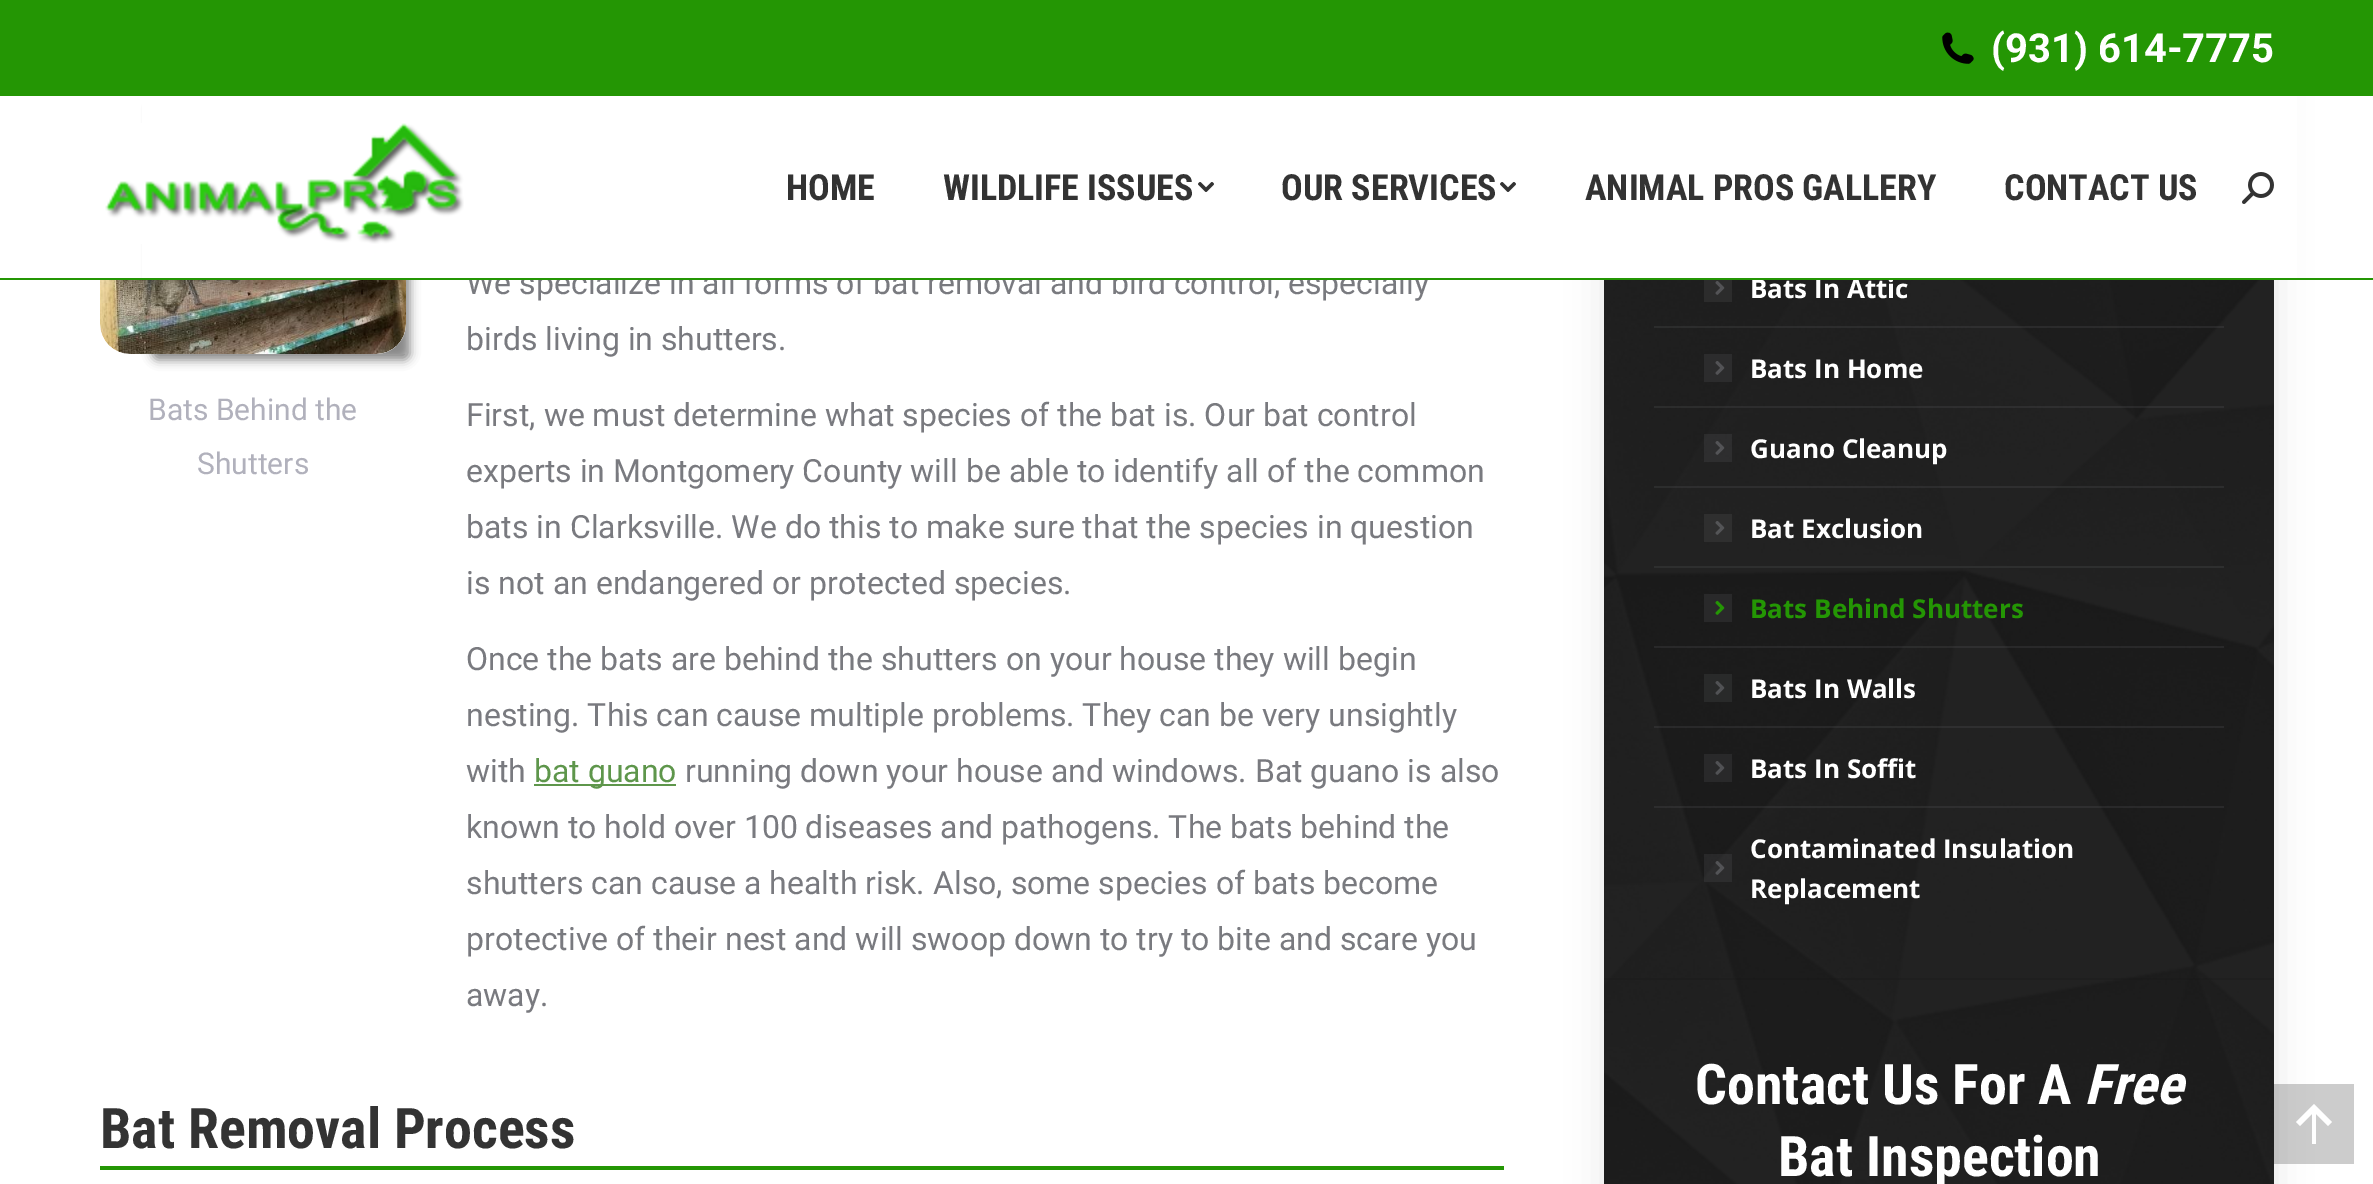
%!PS-Adobe-3.0
%%BoundingBox: 0 0 2373 1184
%%LanguageLevel: 3
%%Pages: 1
%%EndComments
%%BeginProlog
/setink { 3 { 255 div 3 1 roll } repeat setrgbcolor } def
/usefont { [ exch dup neg 0 0 3 -1 roll 0 0 ] selectfont } def
/drawtext { setink usefont moveto show } def
/fillbox { setink rectfill } def
/setalpha { dup .setfillconstantalpha .setstrokeconstantalpha } def
/rrect { 5 dict begin { /r /h /w /y /x } { exch def } forall
  x r add y moveto x w add y 2 copy h add r arct x w add y h add x 1 index r arct
  x y h add x y r arct x y 2 copy exch w add exch r arct closepath end } def
/softshadow { 12 dict begin { /a /b /q /h /w /y /x } { exch def } forall gsave /was 0 def
  9 -2 -9 { dup b mul 4 div /e exch def 1 sub .425 mul 2.718 exch exp 1 add a .99 .min exch div /now exch def
    1 1 now sub 1 was sub div sub setalpha /was now def
    w h .min e 2 mul add 0 gt { x e sub y e sub w e 2 mul add h e 2 mul add
      q e add b .6 mul add w h .min 2 div e add .min 0 .max rrect fill } if } for grestore end } def
/drawimage { 5 dict begin { /h /w /y /x /name } { exch def } forall
  gsave x y translate w h scale
  w h 8 [w 0 0 h 0 0] name (r) file false 3 colorimage grestore end } def
%%EndProlog
%%BeginSetup
<< /PageSize [2373 1184] /PageUsesTransparency true >> setpagedevice
%%EndSetup
%%Page: 1 1
0 .pushpdf14devicefilter
0 1184 translate 1 -1 scale
4 setmiterlimit
0 0 2373 1184 255 255 255 fillbox
136 136 136 setink
152 102 258 258 6 5 1 softshadow
(We specialize in all forms of bat removal and bird control, especially) 466 294 /Roboto-Regular 32 121 122 127 drawtext
0 0 0 setink
1604 60 670 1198 20 18 0.1 softshadow
142 96 2155 182 255 255 255 fillbox
1604 280 670 904 2 2 2 fillbox
(assets/img6.rgb) 1604 280 670 904 drawimage
(Bats In Attic) 1750 298 /OpenSans-Bold 26 255 255 255 drawtext
0 278 2373 2 36 150 4 fillbox
0 0 2373 96 36 150 4 fillbox
(assets/img1.rgb) 1942 32 32 32 drawimage
(\(931\) 614-7775) 1991 62 /Roboto-Bold 40 255 255 255 drawtext
(assets/img2.rgb) 105 123 359 121 drawimage
(HOME) 786 200 /RobotoCondensed-Bold 36 51 51 51 drawtext
(WILDLIFE ISSUES) 943 200 /RobotoCondensed-Bold 36 51 51 51 drawtext
(assets/img3.rgb) 1198 182 16 10 drawimage
(OUR SERVICES) 1281 200 /RobotoCondensed-Bold 36 51 51 51 drawtext
(assets/img3.rgb) 1500 182 16 10 drawimage
(ANIMAL PROS GALLERY) 1585 200 /RobotoCondensed-Bold 36 51 51 51 drawtext
(CONTACT US) 2004 200 /RobotoCondensed-Bold 36 51 51 51 drawtext
(assets/img4.rgb) 2242 172 32 32 drawimage
(assets/img5.rgb) 100 280 306 74 drawimage
(Bats Behind the) 148 420 /Roboto-Regular 30 177 177 188 drawtext
(Shutters) 197 474 /Roboto-Regular 30 177 177 188 drawtext
(birds living in shutters.) 466 350 /Roboto-Regular 32 121 122 127 drawtext
(First, we must determine what species of the bat is. Our bat control) 466 426 /Roboto-Regular 32 121 122 127 drawtext
(experts in Montgomery County will be able to identify all of the common) 466 482 /Roboto-Regular 32 121 122 127 drawtext
(bats in Clarksville. We do this to make sure that the species in question) 466 538 /Roboto-Regular 32 121 122 127 drawtext
(is not an endangered or protected species.) 466 594 /Roboto-Regular 32 121 122 127 drawtext
(Once the bats are behind the shutters on your house they will begin) 466 670 /Roboto-Regular 32 121 122 127 drawtext
(nesting. This can cause multiple problems. They can be very unsightly) 466 726 /Roboto-Regular 32 121 122 127 drawtext
(with) 466 782 /Roboto-Regular 32 121 122 127 drawtext
534 784 142 2 94 150 75 fillbox
(bat guano) 534 782 /Roboto-Regular 32 94 150 75 drawtext
(running down your house and windows. Bat guano is also) 685 782 /Roboto-Regular 32 121 122 127 drawtext
(known to hold over 100 diseases and pathogens. The bats behind the) 466 838 /Roboto-Regular 32 121 122 127 drawtext
(shutters can cause a health risk. Also, some species of bats become) 466 894 /Roboto-Regular 32 121 122 127 drawtext
(protective of their nest and will swoop down to try to bite and scare you) 466 950 /Roboto-Regular 32 121 122 127 drawtext
(away.) 466 1006 /Roboto-Regular 32 121 122 127 drawtext
100 1166 1404 4 36 150 4 fillbox
(Bat Removal Process) 100 1148 /RobotoCondensed-Bold 56 51 51 51 drawtext
1704 280 28 22 44 44 44 fillbox
(assets/img7.rgb) 1715 281 10 14 drawimage
0.15 setalpha
1654 326 570 2 121 122 127 fillbox
1 setalpha
1704 354 28 28 44 44 45 fillbox
(Bats In Home) 1750 378 /OpenSans-Bold 26 255 255 255 drawtext
(assets/img8.rgb) 1715 361 10 14 drawimage
0.15 setalpha
1654 406 570 2 121 122 127 fillbox
1704 434 28 28 121 122 127 fillbox
1 setalpha
(Guano Cleanup) 1750 458 /OpenSans-Bold 26 255 255 255 drawtext
(assets/img9.rgb) 1715 441 10 14 drawimage
0.15 setalpha
1654 486 570 2 121 122 127 fillbox
1 setalpha
1704 514 28 28 47 47 47 fillbox
(Bat Exclusion) 1750 538 /OpenSans-Bold 26 255 255 255 drawtext
(assets/img10.rgb) 1715 521 10 14 drawimage
1654 566 570 2 46 47 47 fillbox
1704 594 28 28 41 41 42 fillbox
(Bats Behind Shutters) 1750 618 /OpenSans-Bold 26 36 150 4 drawtext
(assets/img11.rgb) 1715 600 10 15 drawimage
0.15 setalpha
1654 646 570 2 121 122 127 fillbox
1 setalpha
1704 674 28 28 41 42 42 fillbox
(Bats In Walls) 1750 698 /OpenSans-Bold 26 255 255 255 drawtext
(assets/img12.rgb) 1715 681 10 14 drawimage
0.15 setalpha
1654 726 570 2 121 122 127 fillbox
1 setalpha
1704 754 28 28 41 41 42 fillbox
(Bats In Soffit) 1750 778 /OpenSans-Bold 26 255 255 255 drawtext
(assets/img13.rgb) 1715 761 10 14 drawimage
0.15 setalpha
1654 806 570 2 121 122 127 fillbox
1 setalpha
(Contaminated Insulation) 1750 858 /OpenSans-Bold 26 255 255 255 drawtext
0.15 setalpha
1704 854 28 28 121 122 127 fillbox
1 setalpha
(assets/img14.rgb) 1715 861 10 14 drawimage
(Replacement) 1750 898 /OpenSans-Bold 26 255 255 255 drawtext
0.08 setalpha
1604 978 670 2 0 0 0 fillbox
1 setalpha
(Contact Us For A) 1695 1104 /RobotoCondensed-Bold 56 255 255 255 drawtext
(Free) 2084 1104 /RobotoCondensed-BoldItalic 56 255 255 255 drawtext
(Bat Inspection) 1778 1176 /RobotoCondensed-Bold 56 255 255 255 drawtext
0.2 setalpha
2274 1084 80 80 0 0 0 fillbox
1 setalpha
255 255 255 setink
2296 1122 moveto 2300 1126 lineto 2312 1114 lineto 2312 1144 lineto 2316 1144 lineto 2316 1114 lineto 2328 1126 lineto 2332 1122 lineto 2314 1104 lineto closepath fill
.poppdf14devicefilter showpage
%%EOF
